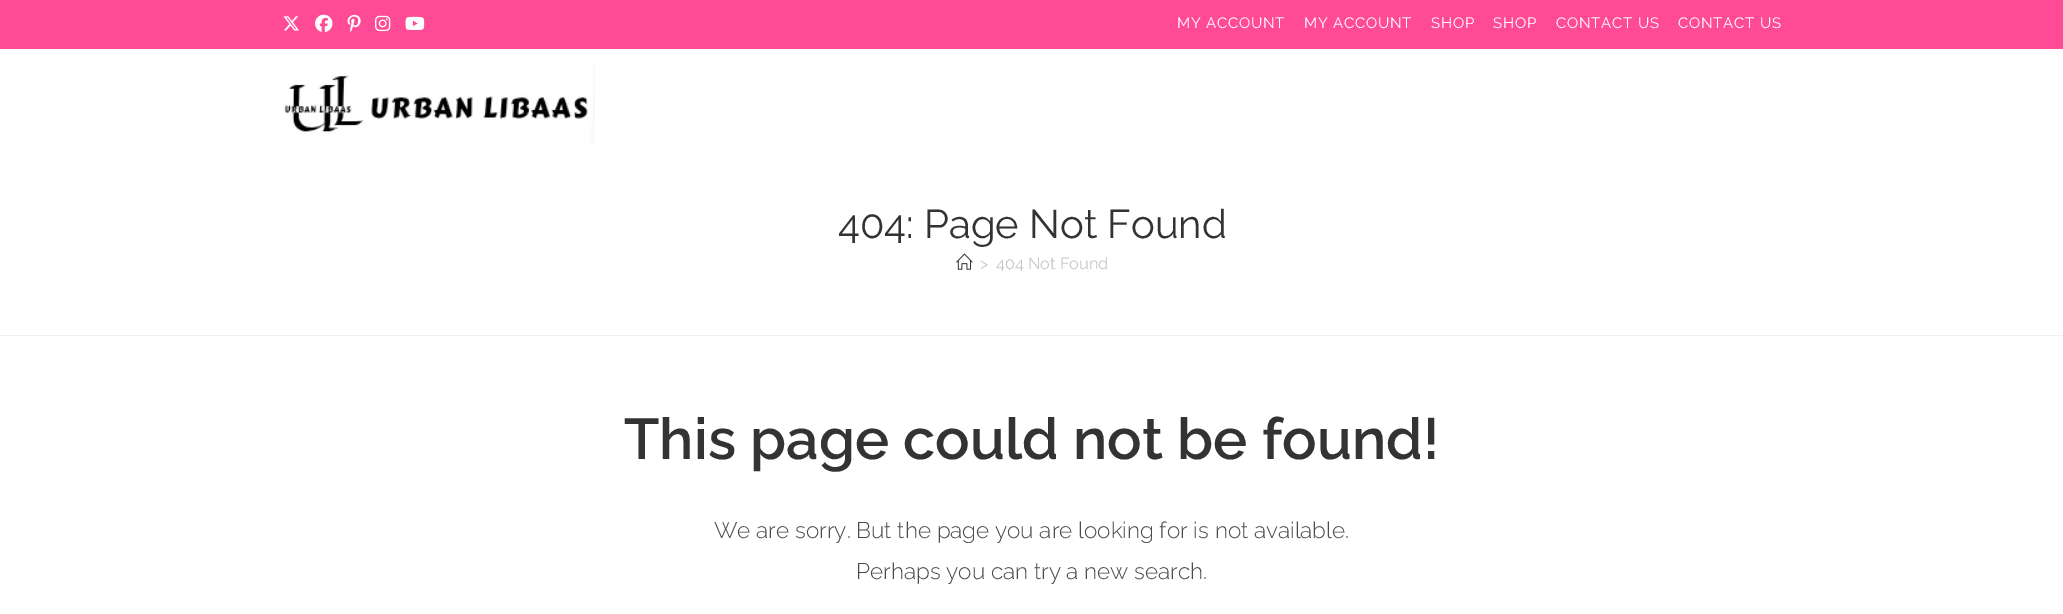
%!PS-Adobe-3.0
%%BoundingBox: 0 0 2063 614
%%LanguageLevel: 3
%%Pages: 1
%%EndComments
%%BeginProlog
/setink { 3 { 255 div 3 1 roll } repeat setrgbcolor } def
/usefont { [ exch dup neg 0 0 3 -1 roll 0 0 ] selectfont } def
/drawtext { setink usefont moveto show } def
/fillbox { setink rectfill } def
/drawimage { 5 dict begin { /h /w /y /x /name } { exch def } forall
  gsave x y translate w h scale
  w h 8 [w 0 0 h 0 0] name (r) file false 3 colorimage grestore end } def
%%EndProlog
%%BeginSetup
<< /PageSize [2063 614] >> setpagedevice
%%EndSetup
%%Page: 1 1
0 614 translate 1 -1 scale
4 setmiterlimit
0 0 2063 614 255 255 255 fillbox
0 0 2063 49 255 74 150 fillbox
(assets/img1.rgb) 283 16 16 15 drawimage
(assets/img2.rgb) 315 14 18 18 drawimage
(assets/img3.rgb) 347 14 14 18 drawimage
(assets/img4.rgb) 375 15 16 17 drawimage
(assets/img5.rgb) 405 16 20 14 drawimage
/Raleway-Regular 15 usefont
255 255 255 setink
1177 28 moveto 0.75 0 (MY ACCOUNT) ashow
1304 28 moveto 0.75 0 (MY ACCOUNT) ashow
1431 28 moveto 0.75 0 (SHOP) ashow
1493 28 moveto 0.75 0 (SHOP) ashow
1556 28 moveto 0.75 0 (CONTACT US) ashow
1678 28 moveto 0.75 0 (CONTACT US) ashow
(assets/img6.rgb) 284 61 311 84 drawimage
0 335 2063 1 241 241 241 fillbox
(404: Page Not Found) 838 238 /Raleway-Regular 40 51 51 51 drawtext
(assets/img7.rgb) 956 253 17 17 drawimage
(>) 980 269 /Raleway-Regular 16.25 198 198 198 drawtext
(404 Not Found) 996 269 /Raleway-Regular 16.25 198 198 198 drawtext
(This page could not be found!) 624 459 /Raleway-SemiBold 57.5 51 51 51 drawtext
(We are sorry. But the page you are looking for is not available.) 714 538 /Raleway-Light 22.5 74 74 74 drawtext
(Perhaps you can try a new search.) 856 579 /Raleway-Light 22.5 74 74 74 drawtext
showpage
%%EOF
